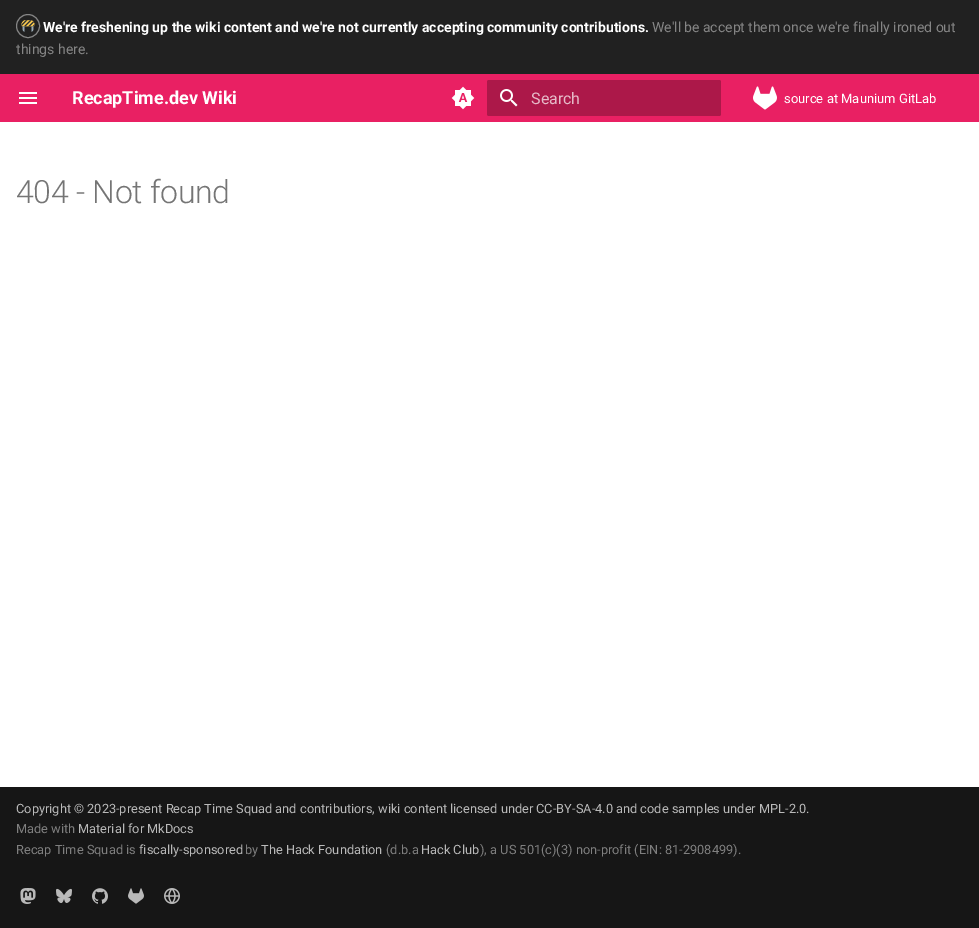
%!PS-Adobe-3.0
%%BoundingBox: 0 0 979 928
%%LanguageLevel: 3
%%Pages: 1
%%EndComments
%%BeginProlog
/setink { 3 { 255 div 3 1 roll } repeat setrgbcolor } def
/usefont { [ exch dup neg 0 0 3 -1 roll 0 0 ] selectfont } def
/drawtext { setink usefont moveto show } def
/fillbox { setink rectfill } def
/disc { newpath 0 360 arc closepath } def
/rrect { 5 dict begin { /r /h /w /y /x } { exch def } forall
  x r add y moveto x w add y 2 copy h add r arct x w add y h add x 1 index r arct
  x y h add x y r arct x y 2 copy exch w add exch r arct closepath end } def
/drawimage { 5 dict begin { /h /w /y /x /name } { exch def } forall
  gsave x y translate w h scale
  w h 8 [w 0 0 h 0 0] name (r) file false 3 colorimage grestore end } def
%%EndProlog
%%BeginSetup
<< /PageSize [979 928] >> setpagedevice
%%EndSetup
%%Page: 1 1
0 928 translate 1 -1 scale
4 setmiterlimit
0 0 979 928 255 255 255 fillbox
0 0 979 74 33 33 33 fillbox
133 133 133 setink
28 26 11.5 disc stroke
(assets/img1.rgb) 21 20 14 12 drawimage
(We're freshening up the wiki content and we're not currently accepting community contributions.) 43 32 /Roboto-Bold 14 255 255 255 drawtext
/Roboto-Regular 14 usefont
133 133 133 setink
652 32 moveto -0.25 0 32 (We'll be accept them once we're finally ironed out) widthshow
(things here.) 16 54 /Roboto-Regular 14 133 133 133 drawtext
0 74 979 48 233 32 99 fillbox
(assets/img2.rgb) 19 92 18 12 drawimage
(RecapTime.dev Wiki) 72 104 /Roboto-Bold 18 255 255 255 drawtext
(assets/img3.rgb) 451 86 24 24 drawimage
172 24 73 setink
487 80 234 36 2 rrect fill
(assets/img4.rgb) 500 89 18 18 drawimage
(Search) 531 104 /Roboto-Regular 16 230 186 200 drawtext
(assets/img5.rgb) 753 86 24 24 drawimage
(source at Maunium GitLab) 784 103 /Roboto-Regular 13 255 255 255 drawtext
/Roboto-Light 32 usefont
117 117 117 setink
16 203 moveto -0.3 0 (404 - Not found) ashow
0 787 979 141 22 22 22 fillbox
(Copyright © 2023-present Recap Time Squad and contributiors, wiki content licensed under CC-BY-SA-4.0 and code samples under MPL-2.0.) 16 813 /Roboto-Regular 12.8 185 185 185 drawtext
(Made with) 16 833 /Roboto-Regular 12.8 127 127 127 drawtext
(Material for MkDocs) 78 833 /Roboto-Regular 12.8 185 185 185 drawtext
(Recap Time Squad is) 16 854 /Roboto-Regular 12.8 127 127 127 drawtext
(fiscally-sponsored) 139 854 /Roboto-Regular 12.8 185 185 185 drawtext
(by) 245 854 /Roboto-Regular 12.8 127 127 127 drawtext
(The Hack Foundation) 261 854 /Roboto-Regular 12.8 185 185 185 drawtext
(\(d.b.a) 386 854 /Roboto-Regular 12.8 127 127 127 drawtext
(Hack Club) 421 854 /Roboto-Regular 12.8 185 185 185 drawtext
(\), a US 501\(c\)\(3\) non-profit \(EIN: 81-2908499\).) 480 854 /Roboto-Regular 12.8 127 127 127 drawtext
(assets/img6.rgb) 20 888 16 16 drawimage
(assets/img7.rgb) 56 888 16 15 drawimage
(assets/img8.rgb) 92 888 16 16 drawimage
(assets/img9.rgb) 128 888 16 16 drawimage
(assets/img10.rgb) 164 888 16 16 drawimage
showpage
%%EOF
